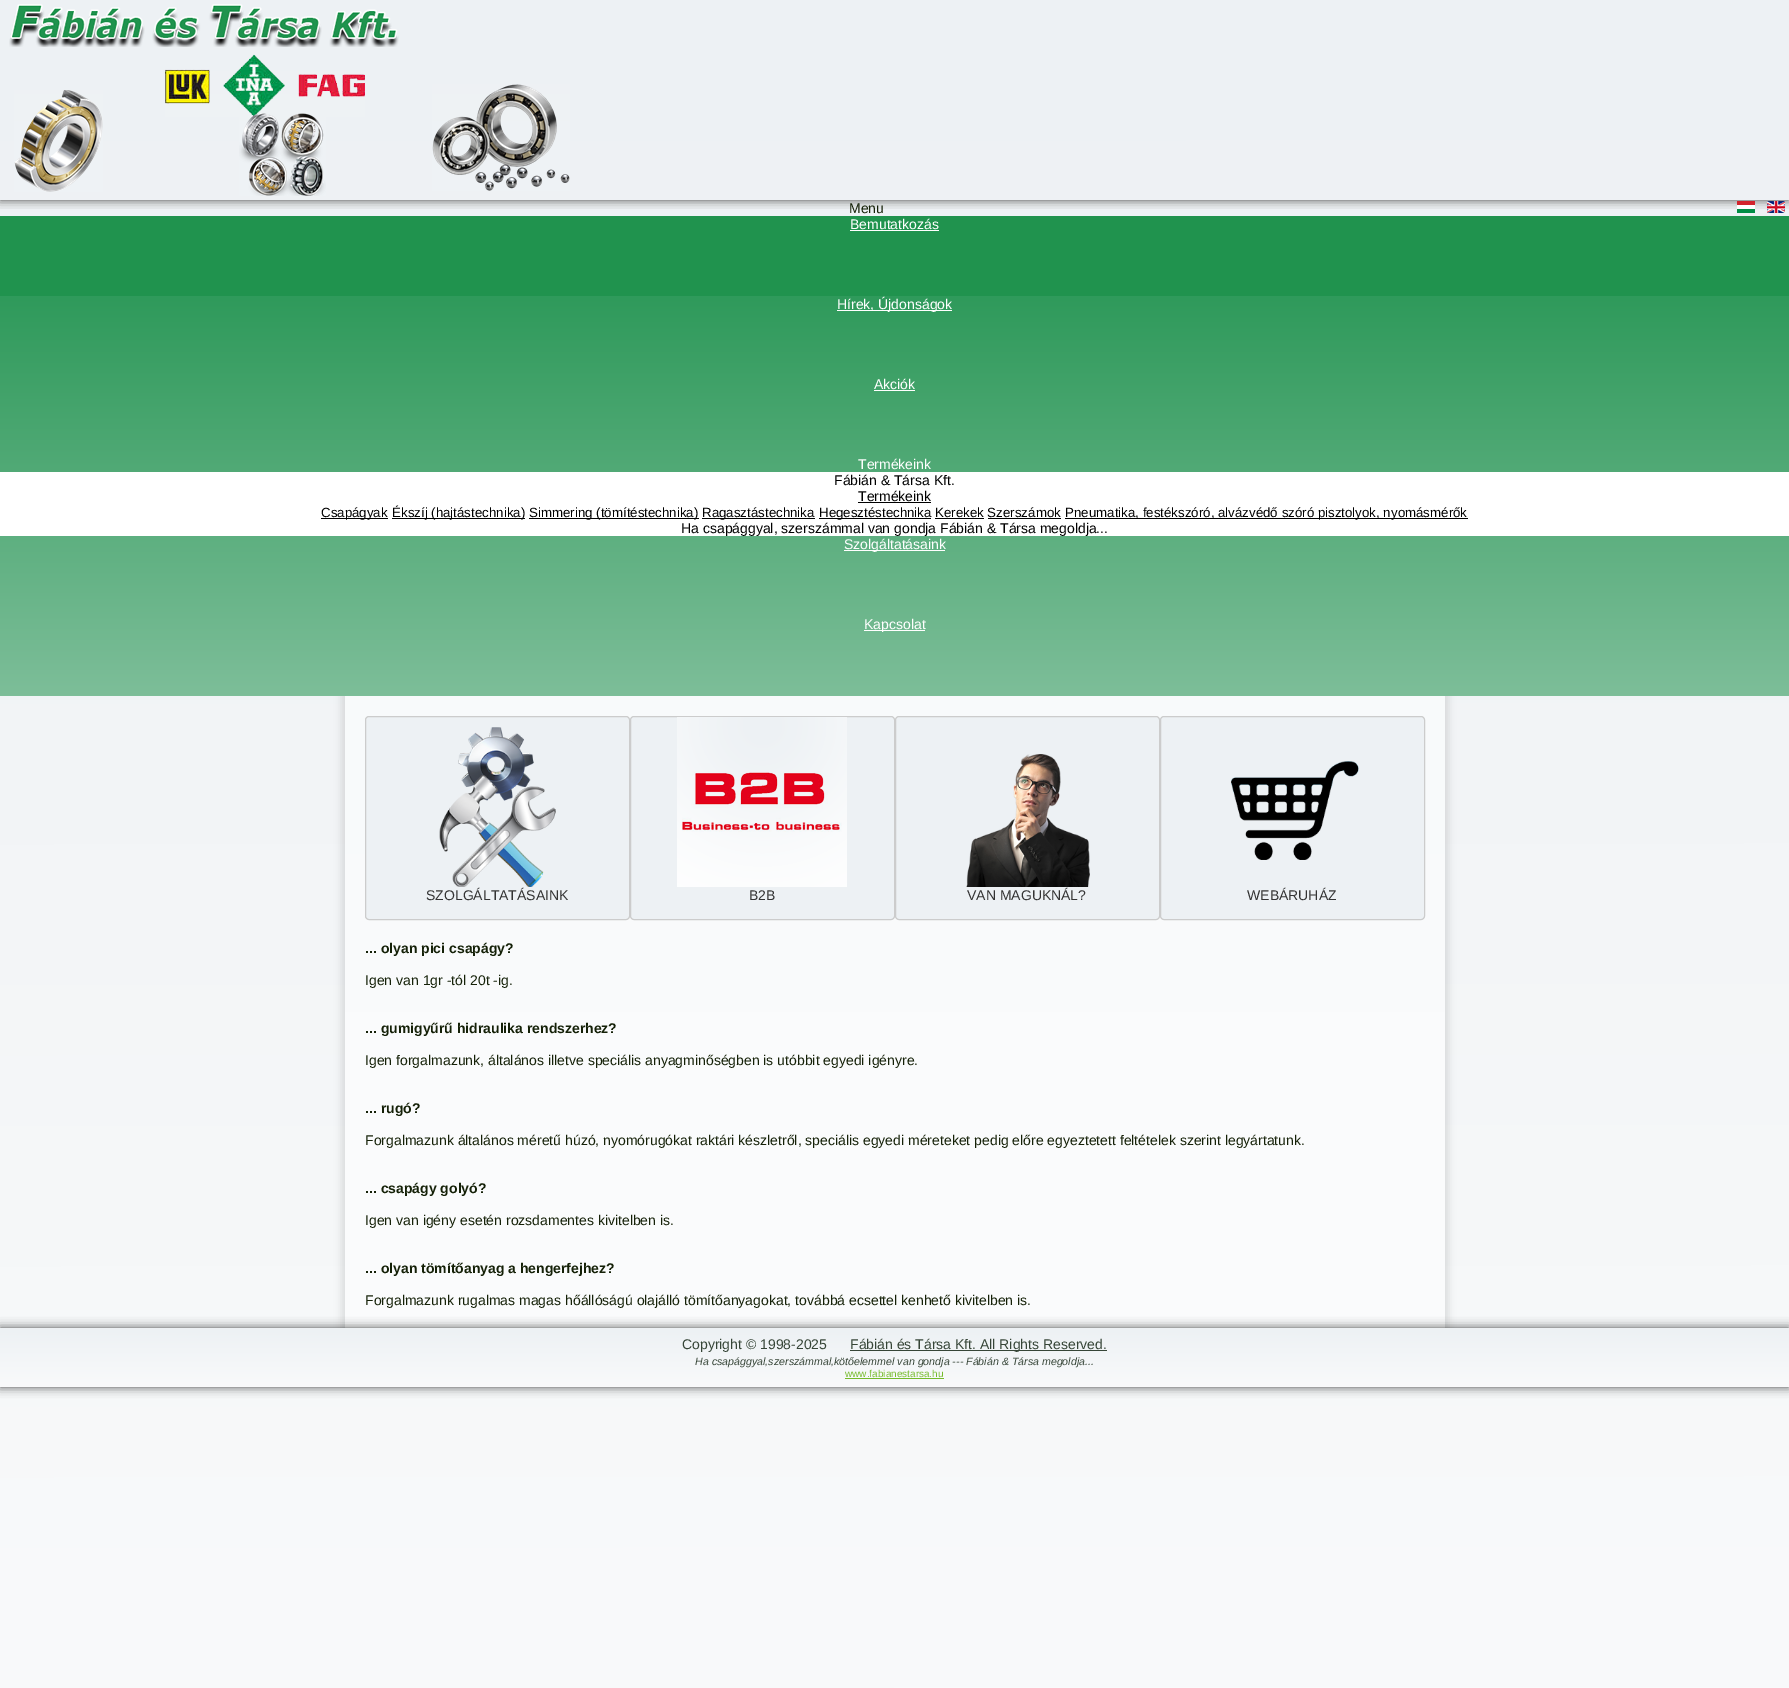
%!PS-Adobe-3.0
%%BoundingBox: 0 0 1789 1688
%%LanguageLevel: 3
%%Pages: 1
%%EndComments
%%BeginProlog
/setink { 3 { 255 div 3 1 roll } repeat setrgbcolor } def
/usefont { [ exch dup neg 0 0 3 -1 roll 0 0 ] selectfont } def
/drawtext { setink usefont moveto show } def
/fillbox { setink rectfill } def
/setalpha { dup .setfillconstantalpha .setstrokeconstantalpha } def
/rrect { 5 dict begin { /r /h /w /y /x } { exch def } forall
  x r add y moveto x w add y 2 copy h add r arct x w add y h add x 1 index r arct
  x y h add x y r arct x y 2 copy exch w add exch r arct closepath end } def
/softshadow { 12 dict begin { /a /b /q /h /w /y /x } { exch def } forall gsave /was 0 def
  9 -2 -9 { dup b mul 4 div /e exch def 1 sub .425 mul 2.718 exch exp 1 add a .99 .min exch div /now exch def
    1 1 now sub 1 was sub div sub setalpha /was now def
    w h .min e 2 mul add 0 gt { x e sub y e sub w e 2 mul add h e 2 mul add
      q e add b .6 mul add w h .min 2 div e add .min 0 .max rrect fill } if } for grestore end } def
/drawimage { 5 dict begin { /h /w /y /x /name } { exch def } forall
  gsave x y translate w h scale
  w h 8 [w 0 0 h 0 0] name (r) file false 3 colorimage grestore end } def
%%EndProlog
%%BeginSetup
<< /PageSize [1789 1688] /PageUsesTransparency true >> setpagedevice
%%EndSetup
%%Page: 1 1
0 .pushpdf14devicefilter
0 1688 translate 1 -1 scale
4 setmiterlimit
0 0 1789 1688 255 255 255 fillbox
gsave 0 0 moveto 1789 0 lineto 1789 1688 lineto 0 1688 lineto closepath clip newpath
<< /ShadingType 2 /ColorSpace /DeviceRGB /Coords [894 0 895 1688] /Extend [true true] /Function << /FunctionType 2 /Domain [0 1] /C0 [0.929 0.945 0.957] /C1 [0.976 0.98 0.984] /N 1 >> >> shfill grestore
gsave 345 696 moveto 1445 696 lineto 1445 1328 lineto 345 1328 lineto closepath clip newpath
<< /ShadingType 2 /ColorSpace /DeviceRGB /Coords [894 0 895 1688] /Extend [true true] /Function << /FunctionType 2 /Domain [0 1] /C0 [0.965 0.973 0.98] /C1 [0.988 0.992 0.992] /N 1 >> >> shfill grestore
gsave
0 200 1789 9 rectclip
0 0 0 setink
0 0 1789 200 0 5 0.7 softshadow
grestore
(assets/img1.rgb) 9 4 390 43 drawimage
(assets/img2.rgb) 14 90 89 102 drawimage
(assets/img3.rgb) 165 54 200 63 drawimage
(assets/img4.rgb) 432 84 138 107 drawimage
(assets/img5.rgb) 239 113 87 83 drawimage
(Menu) 849 213 /LiberationSans-Regular 14 21 33 8 drawtext
gsave
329 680 moveto 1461 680 lineto 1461 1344 lineto 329 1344 lineto closepath 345 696 moveto 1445 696 lineto 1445 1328 lineto 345 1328 lineto closepath eoclip newpath
0 0 0 setink
341 692 1108 640 0 3.5 0.1 softshadow
grestore
gsave 0 296 moveto 1789 296 lineto 1789 696 lineto 0 696 lineto closepath clip newpath
<< /ShadingType 2 /ColorSpace /DeviceRGB /Coords [895 216 895 696] /Extend [true true] /Function << /FunctionType 2 /Domain [0 1] /C0 [0.125 0.576 0.306] /C1 [0.49 0.745 0.6] /N 1 >> >> shfill grestore
0 216 1789 80 32 147 78 fillbox
(Bemutatkozás) 850 229 /LiberationSans-Regular 14 255 255 255 drawtext
850 230 89 1 255 255 255 fillbox
837 310 115 1 255 255 255 fillbox
(Hírek, Újdonságok) 837 309 /LiberationSans-Regular 14 255 255 255 drawtext
(Akciók) 874 389 /LiberationSans-Regular 14 255 255 255 drawtext
874 390 41 1 255 255 255 fillbox
(Termékeink) 858 469 /LiberationSans-Regular 14 255 255 255 drawtext
0 472 1789 64 255 255 255 fillbox
(Fábián & Társa Kft.) 834 485 /LiberationSans-Regular 14 0 0 0 drawtext
(Termékeink) 858 501 /LiberationSans-Regular 14 0 0 0 drawtext
858 502 73 1 0 0 0 fillbox
321 518 67 1 0 0 0 fillbox
(Csapágyak) 321 517 /LiberationSans-Regular 13.3 0 0 0 drawtext
392 518 133 1 0 0 0 fillbox
(Ékszíj \(hajtástechnika\)) 392 517 /LiberationSans-Regular 13.3 0 0 0 drawtext
529 518 170 1 0 0 0 fillbox
(Simmering \(tömítéstechnika\)) 529 517 /LiberationSans-Regular 13.3 0 0 0 drawtext
702 518 113 1 0 0 0 fillbox
(Ragasztástechnika) 702 517 /LiberationSans-Regular 13.3 0 0 0 drawtext
819 518 112 1 0 0 0 fillbox
(Hegesztéstechnika Kerekek Szerszámok) 819 517 /LiberationSans-Regular 13.3 0 0 0 drawtext
935 518 49 1 0 0 0 fillbox
988 518 73 1 0 0 0 fillbox
1065 518 403 1 0 0 0 fillbox
(Pneumatika, festékszóró, alvázvédő szóró pisztolyok, nyomásmérők) 1065 517 /LiberationSans-Regular 13.3 0 0 0 drawtext
(Ha csapággyal, szerszámmal van gondja Fábián & Társa megoldja...) 681 533 /LiberationSans-Regular 14 0 0 0 drawtext
844 550 101 1 255 255 255 fillbox
(Szolgáltatásaink) 844 549 /LiberationSans-Regular 14 255 255 255 drawtext
864 630 61 1 255 255 255 fillbox
(Kapcsolat) 864 629 /LiberationSans-Regular 14 255 255 255 drawtext
(assets/img6.rgb) 1737 201 18 12 drawimage
(assets/img7.rgb) 1767 201 18 12 drawimage
237 241 244 setink
365.5 716.5 264 203 3.5 rrect gsave fill grestore
204 204 204 setink
stroke
(assets/img8.rgb) 439 727 117 160 drawimage
(SZOLGÁLTATÁSAINK) 426 900 /LiberationSans-Regular 14 51 51 51 drawtext
237 241 244 setink
630.5 716.5 264 203 3.5 rrect gsave fill grestore
204 204 204 setink
stroke
(assets/img9.rgb) 677 717 170 170 drawimage
(B2B) 749 900 /LiberationSans-Regular 14 51 51 51 drawtext
237 241 244 setink
895.5 716.5 264 203 3.5 rrect gsave fill grestore
204 204 204 setink
stroke
(assets/img10.rgb) 966 754 124 133 drawimage
(VAN MAGUKNÁL?) 967 900 /LiberationSans-Regular 14 51 51 51 drawtext
237 241 244 setink
1160.5 716.5 264 203 3.5 rrect gsave fill grestore
204 204 204 setink
stroke
(assets/img11.rgb) 1231 761 128 99 drawimage
(WEBÁRUHÁZ) 1247 900 /LiberationSans-Regular 14 51 51 51 drawtext
(... olyan pici csapágy?) 365 953 /LiberationSans-Bold 14 21 33 8 drawtext
(Igen van 1gr -tól 20t -ig.) 365 985 /LiberationSans-Regular 14 21 33 8 drawtext
(... gumigyűrű hidraulika rendszerhez?) 365 1033 /LiberationSans-Bold 14 21 33 8 drawtext
(Igen forgalmazunk, általános illetve speciális anyagminőségben is utóbbit egyedi igényre.) 365 1065 /LiberationSans-Regular 14 21 33 8 drawtext
(... rugó?) 365 1113 /LiberationSans-Bold 14 21 33 8 drawtext
(Forgalmazunk általános méretű húzó, nyomórugókat raktári készletről, speciális egyedi méreteket pedig előre egyeztetett feltételek szerint legyártatunk.) 365 1145 /LiberationSans-Regular 14 21 33 8 drawtext
(... csapágy golyó?) 365 1193 /LiberationSans-Bold 14 21 33 8 drawtext
(Igen van igény esetén rozsdamentes kivitelben is.) 365 1225 /LiberationSans-Regular 14 21 33 8 drawtext
(... olyan tömítőanyag a hengerfejhez?) 365 1273 /LiberationSans-Bold 14 21 33 8 drawtext
(Forgalmazunk rugalmas magas hőállóságú olajálló tömítőanyagokat, továbbá ecsettel kenhető kivitelben is.) 365 1305 /LiberationSans-Regular 14 21 33 8 drawtext
0 0 0 setink
0 1328 1789 59 0 5 0.7 softshadow
gsave 0 1328 moveto 1789 1328 lineto 1789 1387 lineto 0 1387 lineto closepath clip newpath
<< /ShadingType 2 /ColorSpace /DeviceRGB /Coords [895 1328 895 1387] /Extend [true true] /Function << /FunctionType 2 /Domain [0 1] /C0 [0.929 0.945 0.957] /C1 [0.976 0.98 0.984] /N 1 >> >> shfill grestore
(Copyright © 1998-2025) 682 1349 /LiberationSans-Regular 14 54 69 55 drawtext
850 1350 257 1 54 69 55 fillbox
(Fábián és Társa Kft. All Rights Reserved.) 850 1349 /LiberationSans-Regular 14 54 69 55 drawtext
(Ha csapággyal,szerszámmal,kötőelemmel van gondja --- Fábián & Társa megoldja...) 695 1365 /LiberationSans-Italic 10.65 54 69 55 drawtext
(www.fabianestarsa.hu) 845 1377 /LiberationSans-Regular 10 117 187 42 drawtext
845 1378 99 1 117 187 42 fillbox
.poppdf14devicefilter showpage
%%EOF
